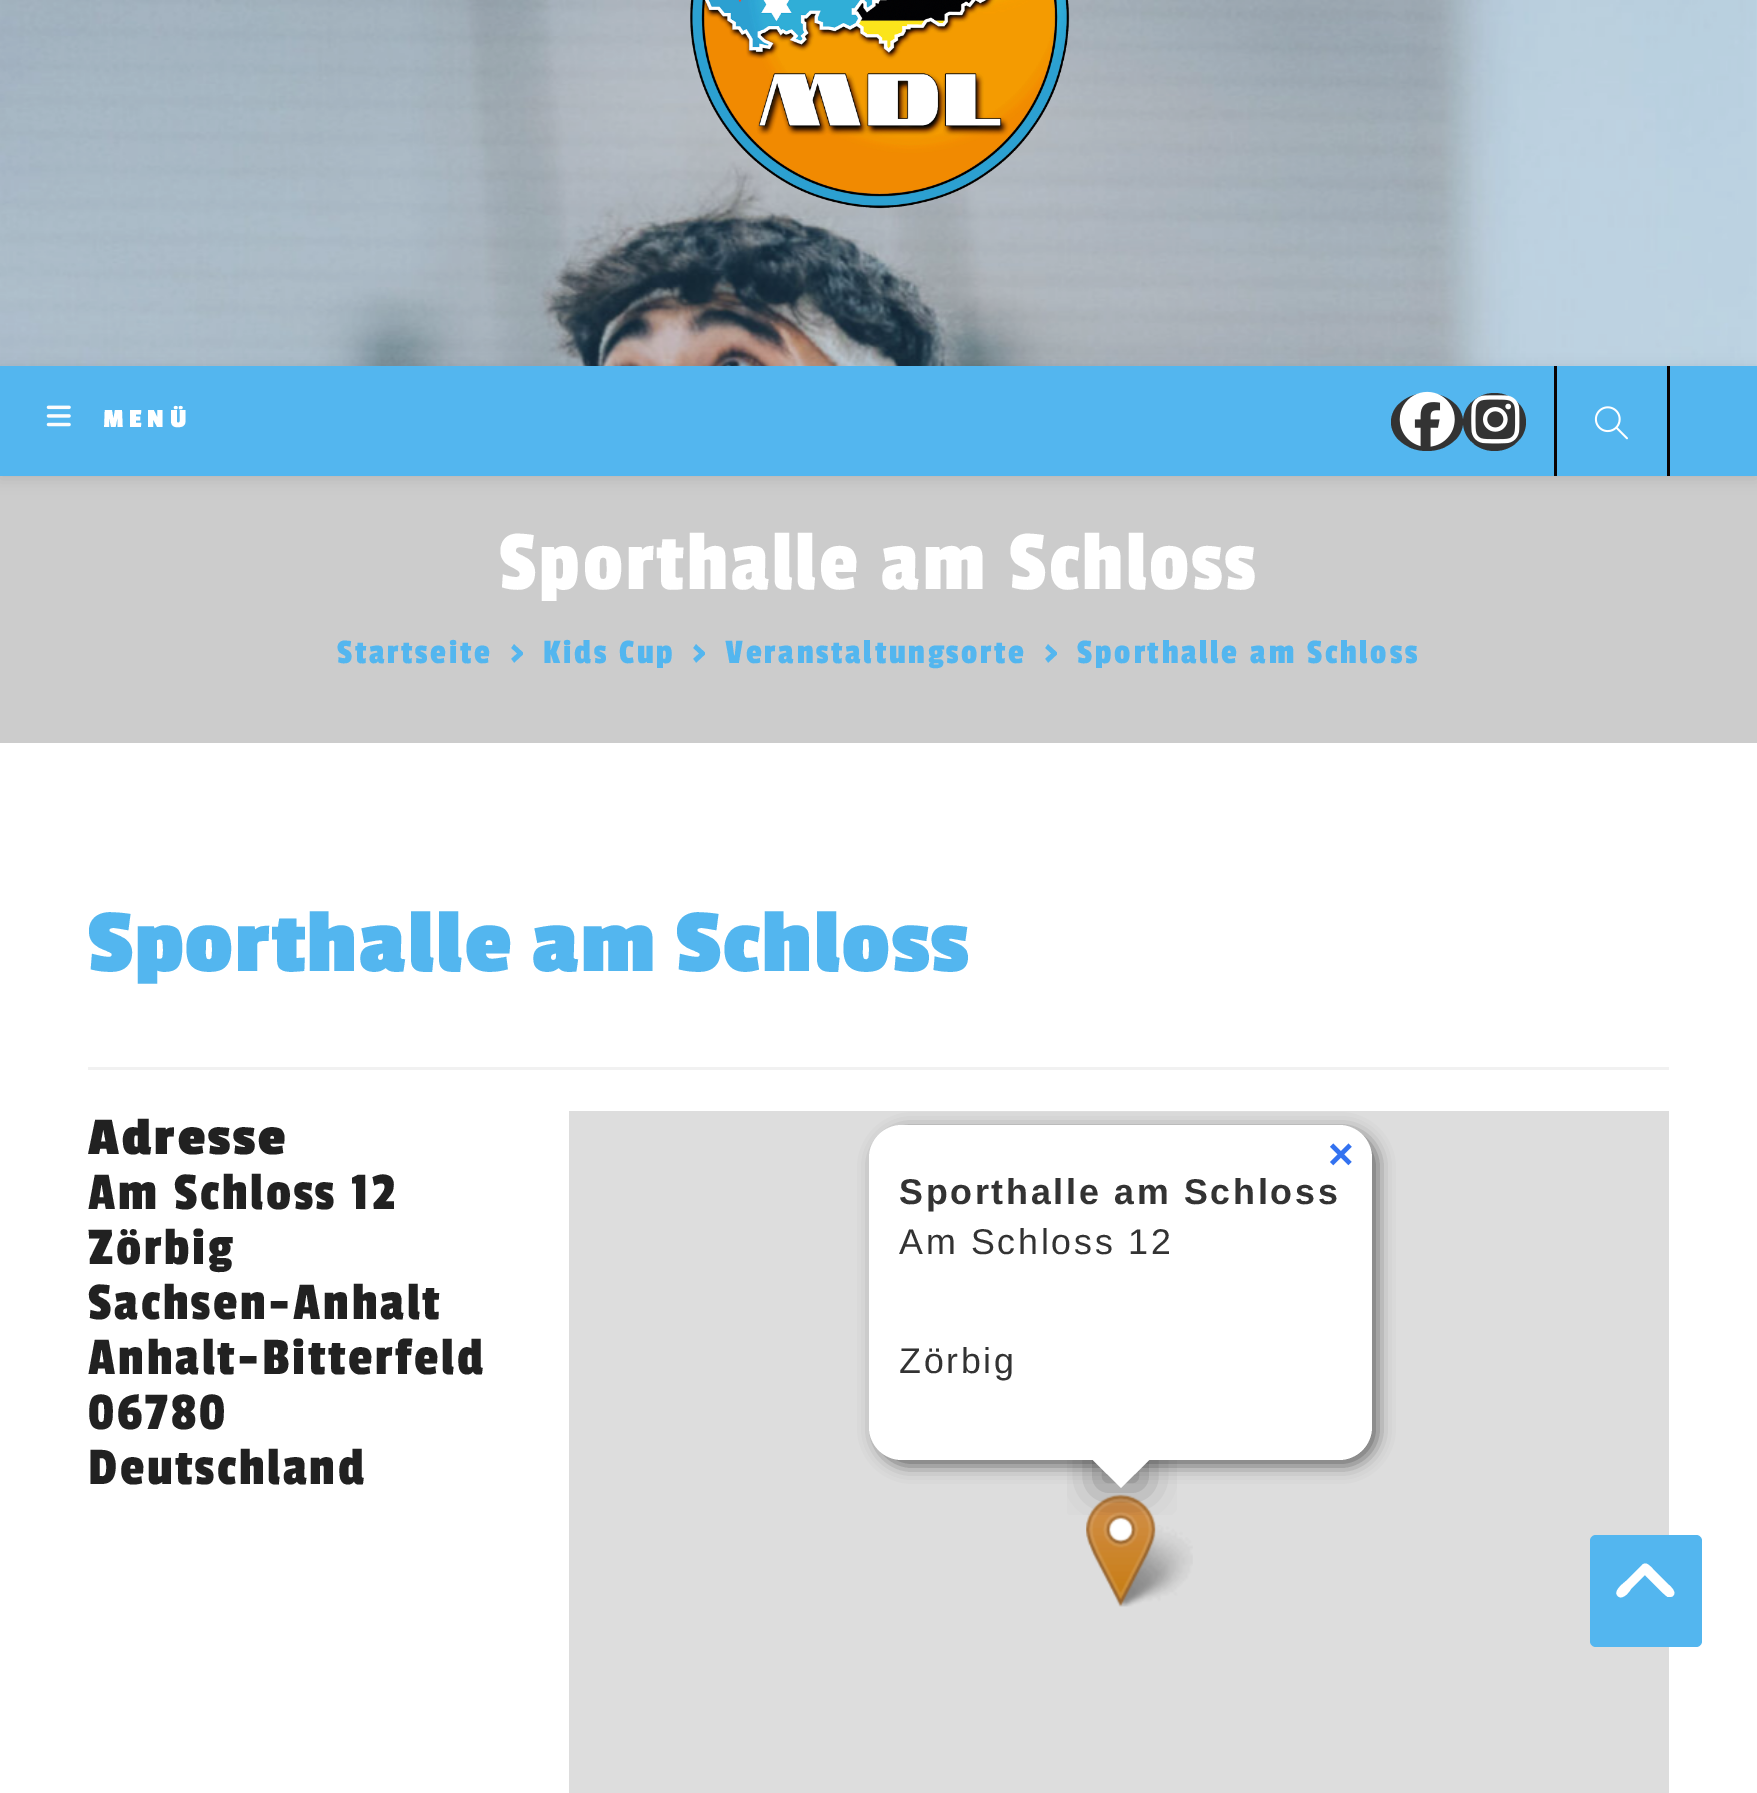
%!PS-Adobe-3.0
%%BoundingBox: 0 0 1757 1793
%%LanguageLevel: 3
%%Pages: 1
%%EndComments
%%BeginProlog
/setink { 3 { 255 div 3 1 roll } repeat setrgbcolor } def
/usefont { [ exch dup neg 0 0 3 -1 roll 0 0 ] selectfont } def
/fillbox { setink rectfill } def
/setalpha { dup .setfillconstantalpha .setstrokeconstantalpha } def
/rrect { 5 dict begin { /r /h /w /y /x } { exch def } forall
  x r add y moveto x w add y 2 copy h add r arct x w add y h add x 1 index r arct
  x y h add x y r arct x y 2 copy exch w add exch r arct closepath end } def
/softshadow { 12 dict begin { /a /b /q /h /w /y /x } { exch def } forall gsave /was 0 def
  9 -2 -9 { dup b mul 4 div /e exch def 1 sub .425 mul 2.718 exch exp 1 add a .99 .min exch div /now exch def
    1 1 now sub 1 was sub div sub setalpha /was now def
    w h .min e 2 mul add 0 gt { x e sub y e sub w e 2 mul add h e 2 mul add
      q e add b .6 mul add w h .min 2 div e add .min 0 .max rrect fill } if } for grestore end } def
/drawimage { 5 dict begin { /h /w /y /x /name } { exch def } forall
  gsave x y translate w h scale
  w h 8 [w 0 0 h 0 0] name (r) file false 3 colorimage grestore end } def
%%EndProlog
%%BeginSetup
<< /PageSize [1757 1793] /PageUsesTransparency true >> setpagedevice
%%EndSetup
%%Page: 1 1
0 .pushpdf14devicefilter
0 1793 translate 1 -1 scale
4 setmiterlimit
0 0 1757 1793 255 255 255 fillbox
(assets/img1.rgb) 0 0 1757 366 drawimage
(assets/img2.rgb) 690 0 380 209 drawimage
0 476 1757 267 204 204 204 fillbox
0 0 0 setink
0 369 1757 110 0 7 0.1 softshadow
0 366 1757 110 83 182 239 fillbox
(assets/img3.rgb) 46 405 25 22 drawimage
/PassionOne-Bold 27.5 usefont
255 255 255 setink
103 427 moveto 5.5 0 (MENÜ) ashow
51 51 51 setink
1427 393 moveto 1447 393 1463 406 1463 422 curveto 1463 438 1447 451 1427 451 curveto 1407 451 1391 438 1391 422 curveto 1391 406 1407 393 1427 393 curveto closepath fill
(assets/img4.rgb) 1399 391 56 56 drawimage
1494.5 393 moveto 1512 393 1526 406 1526 422 curveto 1526 438 1512 451 1494.5 451 curveto 1477 451 1463 438 1463 422 curveto 1463 406 1477 393 1494.5 393 curveto closepath fill
(assets/img5.rgb) 1471 395 49 49 drawimage
1667 366 3 110 10 3 3 fillbox
1554 366 3 110 10 3 3 fillbox
(assets/img6.rgb) 1594 406 34 34 drawimage
/PassionOne-Regular 88 usefont
255 255 255 setink
499 589 moveto 2.75 0 (Sporthalle am Schloss) ashow
/PassionOne-Regular 35.75 usefont
83 182 239 setink
337 663 moveto 2.75 0 (Startseite) ashow
510 663 moveto 2.75 0 (>) ashow
543 663 moveto 2.75 0 (Kids Cup) ashow
692 663 moveto 2.75 0 (>) ashow
725 663 moveto 2.75 0 (Veranstaltungsorte) ashow
1044 663 moveto 2.75 0 (>) ashow
1077 663 moveto 2.75 0 (Sporthalle am Schloss) ashow
88 1067 1581 3 241 241 241 fillbox
/PassionOne-Bold 93.5 usefont
83 182 239 setink
88 971 moveto 1.65 0 (Sporthalle am Schloss) ashow
/PassionOne-Bold 55 usefont
33 33 33 setink
88 1154 moveto 2.75 0 (Adresse) ashow
/PassionOne-Regular 55 usefont
88 1209 moveto 2.75 0 (Am Schloss 12) ashow
88 1264 moveto 2.75 0 (Zörbig) ashow
88 1319 moveto 2.75 0 (Sachsen-Anhalt) ashow
88 1374 moveto 2.75 0 (Anhalt-Bitterfeld) ashow
88 1429 moveto 2.75 0 (06780) ashow
88 1484 moveto 2.75 0 (Deutschland) ashow
569 1111 1100 682 221 221 221 fillbox
105 105 105 setink
875 1130 503 336 33 8 1 softshadow
255 255 255 setink
869 1125 503 335 33 rrect fill
/LiberationSans-Bold 44 usefont
51 114 240 setink
1328 1169 moveto 2.75 0 (×) ashow
/LiberationSans-Bold 35.75 usefont
51 51 51 setink
899 1204 moveto 2.75 0 (Sporthalle am Schloss) ashow
/LiberationSans-Regular 35.75 usefont
899 1254 moveto 2.75 0 (Am Schloss 12) ashow
899 1373 moveto 2.75 0 (Zörbig) ashow
(assets/img8.rgb) 1113 1525 80 82 drawimage
(assets/img7.rgb) 1086 1494 70 113 drawimage
gsave
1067 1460 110 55 rectclip
0 0 0 setink
1097 1441 47 47 0 19.5 0.4 softshadow
grestore
gsave
1067 1460 110 55 rectclip
255 255 255 setink
1121 1422 moveto 1154 1455 lineto 1121 1488 lineto 1088 1455 lineto closepath fill
grestore
83 182 239 setink
1590 1535 112 112 6 rrect fill
255 255 255 setink
1642 1565 moveto 1646 1561 1650 1566 1653 1569 curveto 1669 1585 lineto 1671 1587 1677 1592 1673 1596 curveto 1672 1597 1670 1597 1668 1597 curveto 1665 1596 1649 1579 1645 1575 curveto 1631 1589 lineto 1629 1592 1624 1599 1619 1597 curveto 1611 1592 1624 1583 1626 1581 curveto closepath fill
.poppdf14devicefilter showpage
%%EOF
